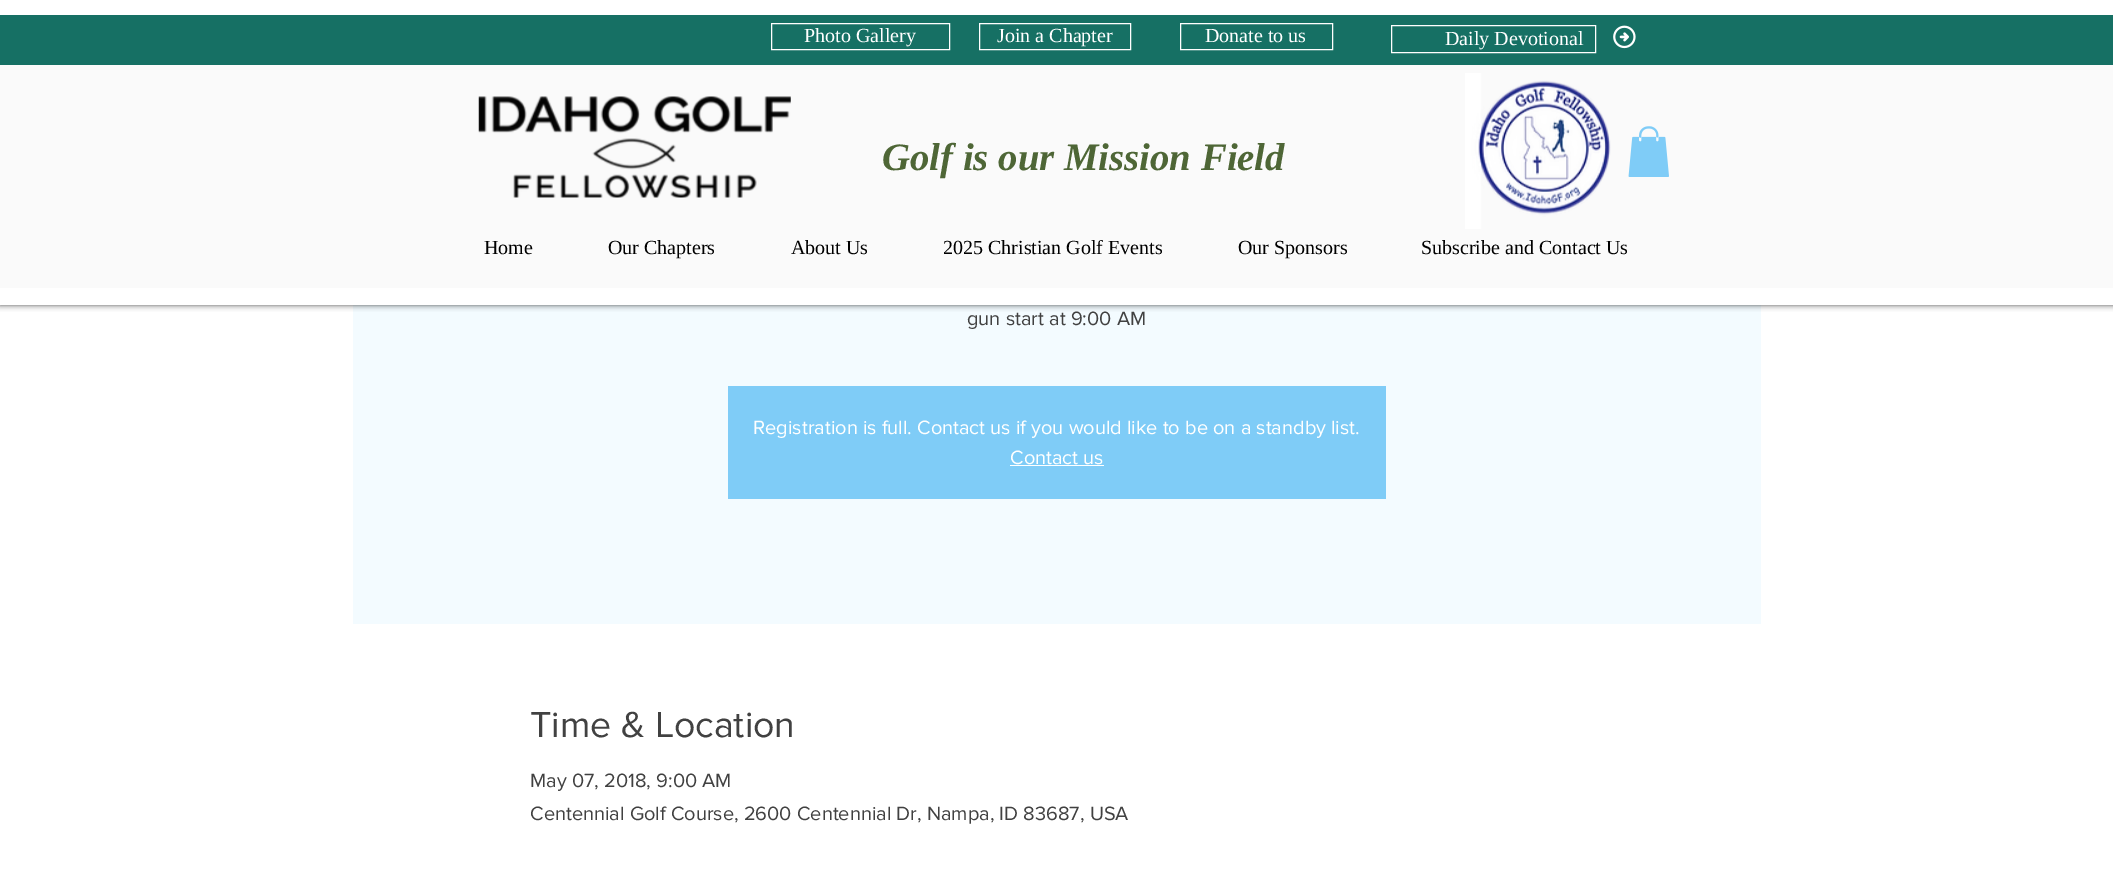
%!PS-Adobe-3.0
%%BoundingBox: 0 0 2113 881
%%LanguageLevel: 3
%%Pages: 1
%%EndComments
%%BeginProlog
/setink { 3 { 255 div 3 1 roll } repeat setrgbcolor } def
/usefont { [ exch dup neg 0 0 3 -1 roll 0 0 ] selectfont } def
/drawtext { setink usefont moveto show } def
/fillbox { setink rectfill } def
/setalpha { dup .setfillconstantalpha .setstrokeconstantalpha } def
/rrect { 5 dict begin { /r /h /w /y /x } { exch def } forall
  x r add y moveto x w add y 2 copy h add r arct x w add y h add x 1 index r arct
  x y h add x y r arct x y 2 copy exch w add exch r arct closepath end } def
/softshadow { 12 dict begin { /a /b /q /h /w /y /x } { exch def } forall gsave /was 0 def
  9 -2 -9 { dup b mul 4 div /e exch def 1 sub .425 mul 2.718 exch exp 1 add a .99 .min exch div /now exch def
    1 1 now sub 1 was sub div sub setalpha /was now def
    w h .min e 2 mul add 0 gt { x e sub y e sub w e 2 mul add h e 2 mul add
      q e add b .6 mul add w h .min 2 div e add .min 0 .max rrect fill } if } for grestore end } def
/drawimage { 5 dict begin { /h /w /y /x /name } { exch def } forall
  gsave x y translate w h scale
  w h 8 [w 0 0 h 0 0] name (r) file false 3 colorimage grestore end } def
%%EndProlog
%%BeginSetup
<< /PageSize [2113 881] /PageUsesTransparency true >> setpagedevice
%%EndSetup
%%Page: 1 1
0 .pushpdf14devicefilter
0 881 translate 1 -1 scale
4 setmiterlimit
0 0 2113 881 255 255 255 fillbox
353 305 1408 319 243 251 255 fillbox
0 0 0 setink
0 0 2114 305 0 3 0.7 softshadow
0 0 2113 305 255 255 255 fillbox
0 15 2113 50 22 112 100 fillbox
255 255 255 setink
771.5 23.5 178 26 rectstroke
(Photo Gallery) 804 42 /LiberationSerif-Regular 20 255 255 255 drawtext
979.5 23.5 151 26 rectstroke
(Join a Chapter) 997 42 /LiberationSerif-Regular 20 255 255 255 drawtext
1180.5 23.5 152 26 rectstroke
(Donate to us) 1205 42 /LiberationSerif-Regular 20 255 255 255 drawtext
1391.5 25.5 204 27 rectstroke
(Daily Devotional) 1445 45 /LiberationSerif-Regular 20 255 255 255 drawtext
(assets/img1.rgb) 1613 25 23 24 drawimage
0 65 2113 223 250 250 250 fillbox
(assets/img2.rgb) 478 96 313 102 drawimage
(Golf is our Mission Field) 882 170 /LiberationSerif-BoldItalic 38.75 78 102 54 drawtext
(assets/img3.rgb) 1465 73 146 156 drawimage
(Home) 484 254 /LiberationSerif-Regular 20 0 0 0 drawtext
(Our Chapters) 608 254 /LiberationSerif-Regular 20 0 0 0 drawtext
(About Us) 791 254 /LiberationSerif-Regular 20 0 0 0 drawtext
(2025 Christian Golf Events) 943 254 /LiberationSerif-Regular 20 0 0 0 drawtext
(Our Sponsors) 1238 254 /LiberationSerif-Regular 20 0 0 0 drawtext
(Subscribe and Contact Us) 1421 254 /LiberationSerif-Regular 20 0 0 0 drawtext
(assets/img4.rgb) 1628 126 41 51 drawimage
(gun start at 9:00 AM) 967 325 /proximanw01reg-Regular 20 65 65 65 drawtext
728 386 658 113 127 204 247 fillbox
(Registration is full. Contact us if you would like to be on a standby list.) 753 434 /proximanw01reg-Regular 20 255 255 255 drawtext
(Contact us) 1010 464 /proximanw01reg-Regular 20 255 255 255 drawtext
1010 465 94 1 255 255 255 fillbox
(Time & Location) 530 737 /proximanw01reg-Regular 37.5 65 65 65 drawtext
(May 07, 2018, 9:00 AM) 530 787 /proximanw01reg-Regular 20 65 65 65 drawtext
(Centennial Golf Course, 2600 Centennial Dr, Nampa, ID 83687, USA) 530 820 /proximanw01reg-Regular 20 65 65 65 drawtext
.poppdf14devicefilter showpage
%%EOF
